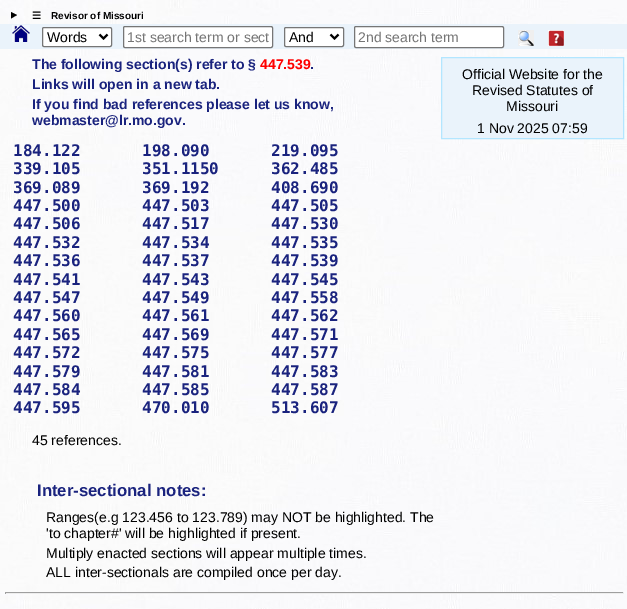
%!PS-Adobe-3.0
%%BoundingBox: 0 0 627 609
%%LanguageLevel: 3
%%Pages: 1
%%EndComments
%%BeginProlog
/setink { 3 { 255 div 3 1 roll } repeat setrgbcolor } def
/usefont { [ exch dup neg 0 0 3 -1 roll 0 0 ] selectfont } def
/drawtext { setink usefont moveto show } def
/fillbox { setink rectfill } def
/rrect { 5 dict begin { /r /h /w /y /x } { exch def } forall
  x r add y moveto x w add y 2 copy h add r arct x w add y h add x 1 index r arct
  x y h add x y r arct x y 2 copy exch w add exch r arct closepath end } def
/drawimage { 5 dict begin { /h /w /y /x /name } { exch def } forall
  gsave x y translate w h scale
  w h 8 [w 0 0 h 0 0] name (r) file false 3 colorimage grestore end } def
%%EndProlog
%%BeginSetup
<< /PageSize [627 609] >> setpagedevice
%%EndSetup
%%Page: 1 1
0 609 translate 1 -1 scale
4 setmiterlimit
0 0 627 609 255 255 255 fillbox
(assets/img1.rgb) 0 0 627 609 drawimage
0 0 0 setink
11 12 moveto 17 15 lineto 11 18.5 lineto closepath fill
(☰) 32 19 /DejaVuSans-Bold 10 0 0 0 drawtext
(Revisor of Missouri) 51 19 /LiberationSans-Bold 10 0 0 0 drawtext
0 24 627 25 234 243 251 fillbox
(assets/img2.rgb) 12 25 18 17 drawimage
255 255 255 setink
42.5 27.5 69 19 1.5 rrect gsave fill grestore
118 118 118 setink
stroke
0 0 0 setink
2 setlinewidth
99.5 34.5 moveto 103.5 38.5 lineto 107.5 34.5 lineto stroke
(Words) 47 42 /LiberationSans-Regular 14 0 0 0 drawtext
255 255 255 setink
123.5 26.5 149 21 1.5 rrect gsave fill grestore
118 118 118 setink
1 setlinewidth
stroke
(1st search term or sect) 127 42 /LiberationSans-Regular 14 117 117 117 drawtext
255 255 255 setink
284.5 27.5 59 19 1.5 rrect gsave fill grestore
118 118 118 setink
stroke
0 0 0 setink
2 setlinewidth
330.5 34.5 moveto 334.5 38.5 lineto 338.5 34.5 lineto stroke
(And) 289 42 /LiberationSans-Regular 14 0 0 0 drawtext
255 255 255 setink
354.5 26.5 149 21 1.5 rrect gsave fill grestore
118 118 118 setink
1 setlinewidth
stroke
(2nd search term) 358 42 /LiberationSans-Regular 14 117 117 117 drawtext
(assets/img3.rgb) 518 30 16 16 drawimage
(assets/img4.rgb) 548 30 16 16 drawimage
(The following section\(s\) refer to §) 32 69 /LiberationSans-Bold 14 26 35 126 drawtext
(447.539) 260 69 /LiberationSans-Bold 14 255 0 0 drawtext
(.) 310 69 /LiberationSans-Bold 14 26 35 126 drawtext
(Links will open in a new tab.) 32 89 /LiberationSans-Bold 14 26 35 126 drawtext
(If you find bad references please let us know,) 32 109 /LiberationSans-Bold 14 26 35 126 drawtext
(webmaster@lr.mo.gov.) 32 125 /LiberationSans-Bold 14 26 35 126 drawtext
(184.122) 13 156 /DejaVuSansMono-Bold 16 26 35 126 drawtext
(198.090) 142 156 /DejaVuSansMono-Bold 16 26 35 126 drawtext
(219.095) 271 156 /DejaVuSansMono-Bold 16 26 35 126 drawtext
(339.105) 13 174 /DejaVuSansMono-Bold 16 26 35 126 drawtext
(351.1150) 142 174 /DejaVuSansMono-Bold 16 26 35 126 drawtext
(362.485) 271 174 /DejaVuSansMono-Bold 16 26 35 126 drawtext
(369.089) 13 193 /DejaVuSansMono-Bold 16 26 35 126 drawtext
(369.192) 142 193 /DejaVuSansMono-Bold 16 26 35 126 drawtext
(408.690) 271 193 /DejaVuSansMono-Bold 16 26 35 126 drawtext
(447.500) 13 211 /DejaVuSansMono-Bold 16 26 35 126 drawtext
(447.503) 142 211 /DejaVuSansMono-Bold 16 26 35 126 drawtext
(447.505) 271 211 /DejaVuSansMono-Bold 16 26 35 126 drawtext
(447.506) 13 229 /DejaVuSansMono-Bold 16 26 35 126 drawtext
(447.517) 142 229 /DejaVuSansMono-Bold 16 26 35 126 drawtext
(447.530) 271 229 /DejaVuSansMono-Bold 16 26 35 126 drawtext
(447.532) 13 248 /DejaVuSansMono-Bold 16 26 35 126 drawtext
(447.534) 142 248 /DejaVuSansMono-Bold 16 26 35 126 drawtext
(447.535) 271 248 /DejaVuSansMono-Bold 16 26 35 126 drawtext
(447.536) 13 266 /DejaVuSansMono-Bold 16 26 35 126 drawtext
(447.537) 142 266 /DejaVuSansMono-Bold 16 26 35 126 drawtext
(447.539) 271 266 /DejaVuSansMono-Bold 16 26 35 126 drawtext
(447.541) 13 285 /DejaVuSansMono-Bold 16 26 35 126 drawtext
(447.543) 142 285 /DejaVuSansMono-Bold 16 26 35 126 drawtext
(447.545) 271 285 /DejaVuSansMono-Bold 16 26 35 126 drawtext
(447.547) 13 303 /DejaVuSansMono-Bold 16 26 35 126 drawtext
(447.549) 142 303 /DejaVuSansMono-Bold 16 26 35 126 drawtext
(447.558) 271 303 /DejaVuSansMono-Bold 16 26 35 126 drawtext
(447.560) 13 321 /DejaVuSansMono-Bold 16 26 35 126 drawtext
(447.561) 142 321 /DejaVuSansMono-Bold 16 26 35 126 drawtext
(447.562) 271 321 /DejaVuSansMono-Bold 16 26 35 126 drawtext
(447.565) 13 340 /DejaVuSansMono-Bold 16 26 35 126 drawtext
(447.569) 142 340 /DejaVuSansMono-Bold 16 26 35 126 drawtext
(447.571) 271 340 /DejaVuSansMono-Bold 16 26 35 126 drawtext
(447.572) 13 358 /DejaVuSansMono-Bold 16 26 35 126 drawtext
(447.575) 142 358 /DejaVuSansMono-Bold 16 26 35 126 drawtext
(447.577) 271 358 /DejaVuSansMono-Bold 16 26 35 126 drawtext
(447.579) 13 377 /DejaVuSansMono-Bold 16 26 35 126 drawtext
(447.581) 142 377 /DejaVuSansMono-Bold 16 26 35 126 drawtext
(447.583) 271 377 /DejaVuSansMono-Bold 16 26 35 126 drawtext
(447.584) 13 395 /DejaVuSansMono-Bold 16 26 35 126 drawtext
(447.585) 142 395 /DejaVuSansMono-Bold 16 26 35 126 drawtext
(447.587) 271 395 /DejaVuSansMono-Bold 16 26 35 126 drawtext
(447.595) 13 413 /DejaVuSansMono-Bold 16 26 35 126 drawtext
(470.010) 142 413 /DejaVuSansMono-Bold 16 26 35 126 drawtext
(513.607) 271 413 /DejaVuSansMono-Bold 16 26 35 126 drawtext
(45 references.) 32 445 /LiberationSans-Regular 14 0 0 0 drawtext
(Inter-sectional notes:) 37 496 /LiberationSans-Bold 16.75 26 35 126 drawtext
(Ranges\(e.g 123.456 to 123.789\) may NOT be highlighted. The) 46 522 /LiberationSans-Regular 14 0 0 0 drawtext
('to chapter#' will be highlighted if present.) 46 538 /LiberationSans-Regular 14 0 0 0 drawtext
(Multiply enacted sections will appear multiple times.) 46 558 /LiberationSans-Regular 14 0 0 0 drawtext
(ALL inter-sectionals are compiled once per day.) 46 577 /LiberationSans-Regular 14 0 0 0 drawtext
234 243 251 setink
441.5 57.5 moveto 623.5 57.5 lineto 623.5 138.5 lineto 441.5 138.5 lineto closepath gsave fill grestore
179 230 255 setink
stroke
(Official Website for the) 462 79 /LiberationSans-Regular 14 0 0 0 drawtext
(Revised Statutes of) 472 95 /LiberationSans-Regular 14 0 0 0 drawtext
(Missouri) 506 111 /LiberationSans-Regular 14 0 0 0 drawtext
(1 Nov 2025 07:59) 477 133 /LiberationSans-Regular 14 0 0 0 drawtext
5 592 619 1 159 159 159 fillbox
623 592 1 2 238 238 238 fillbox
5 593 619 1 238 238 238 fillbox
5 592 1 2 159 159 159 fillbox
showpage
%%EOF
